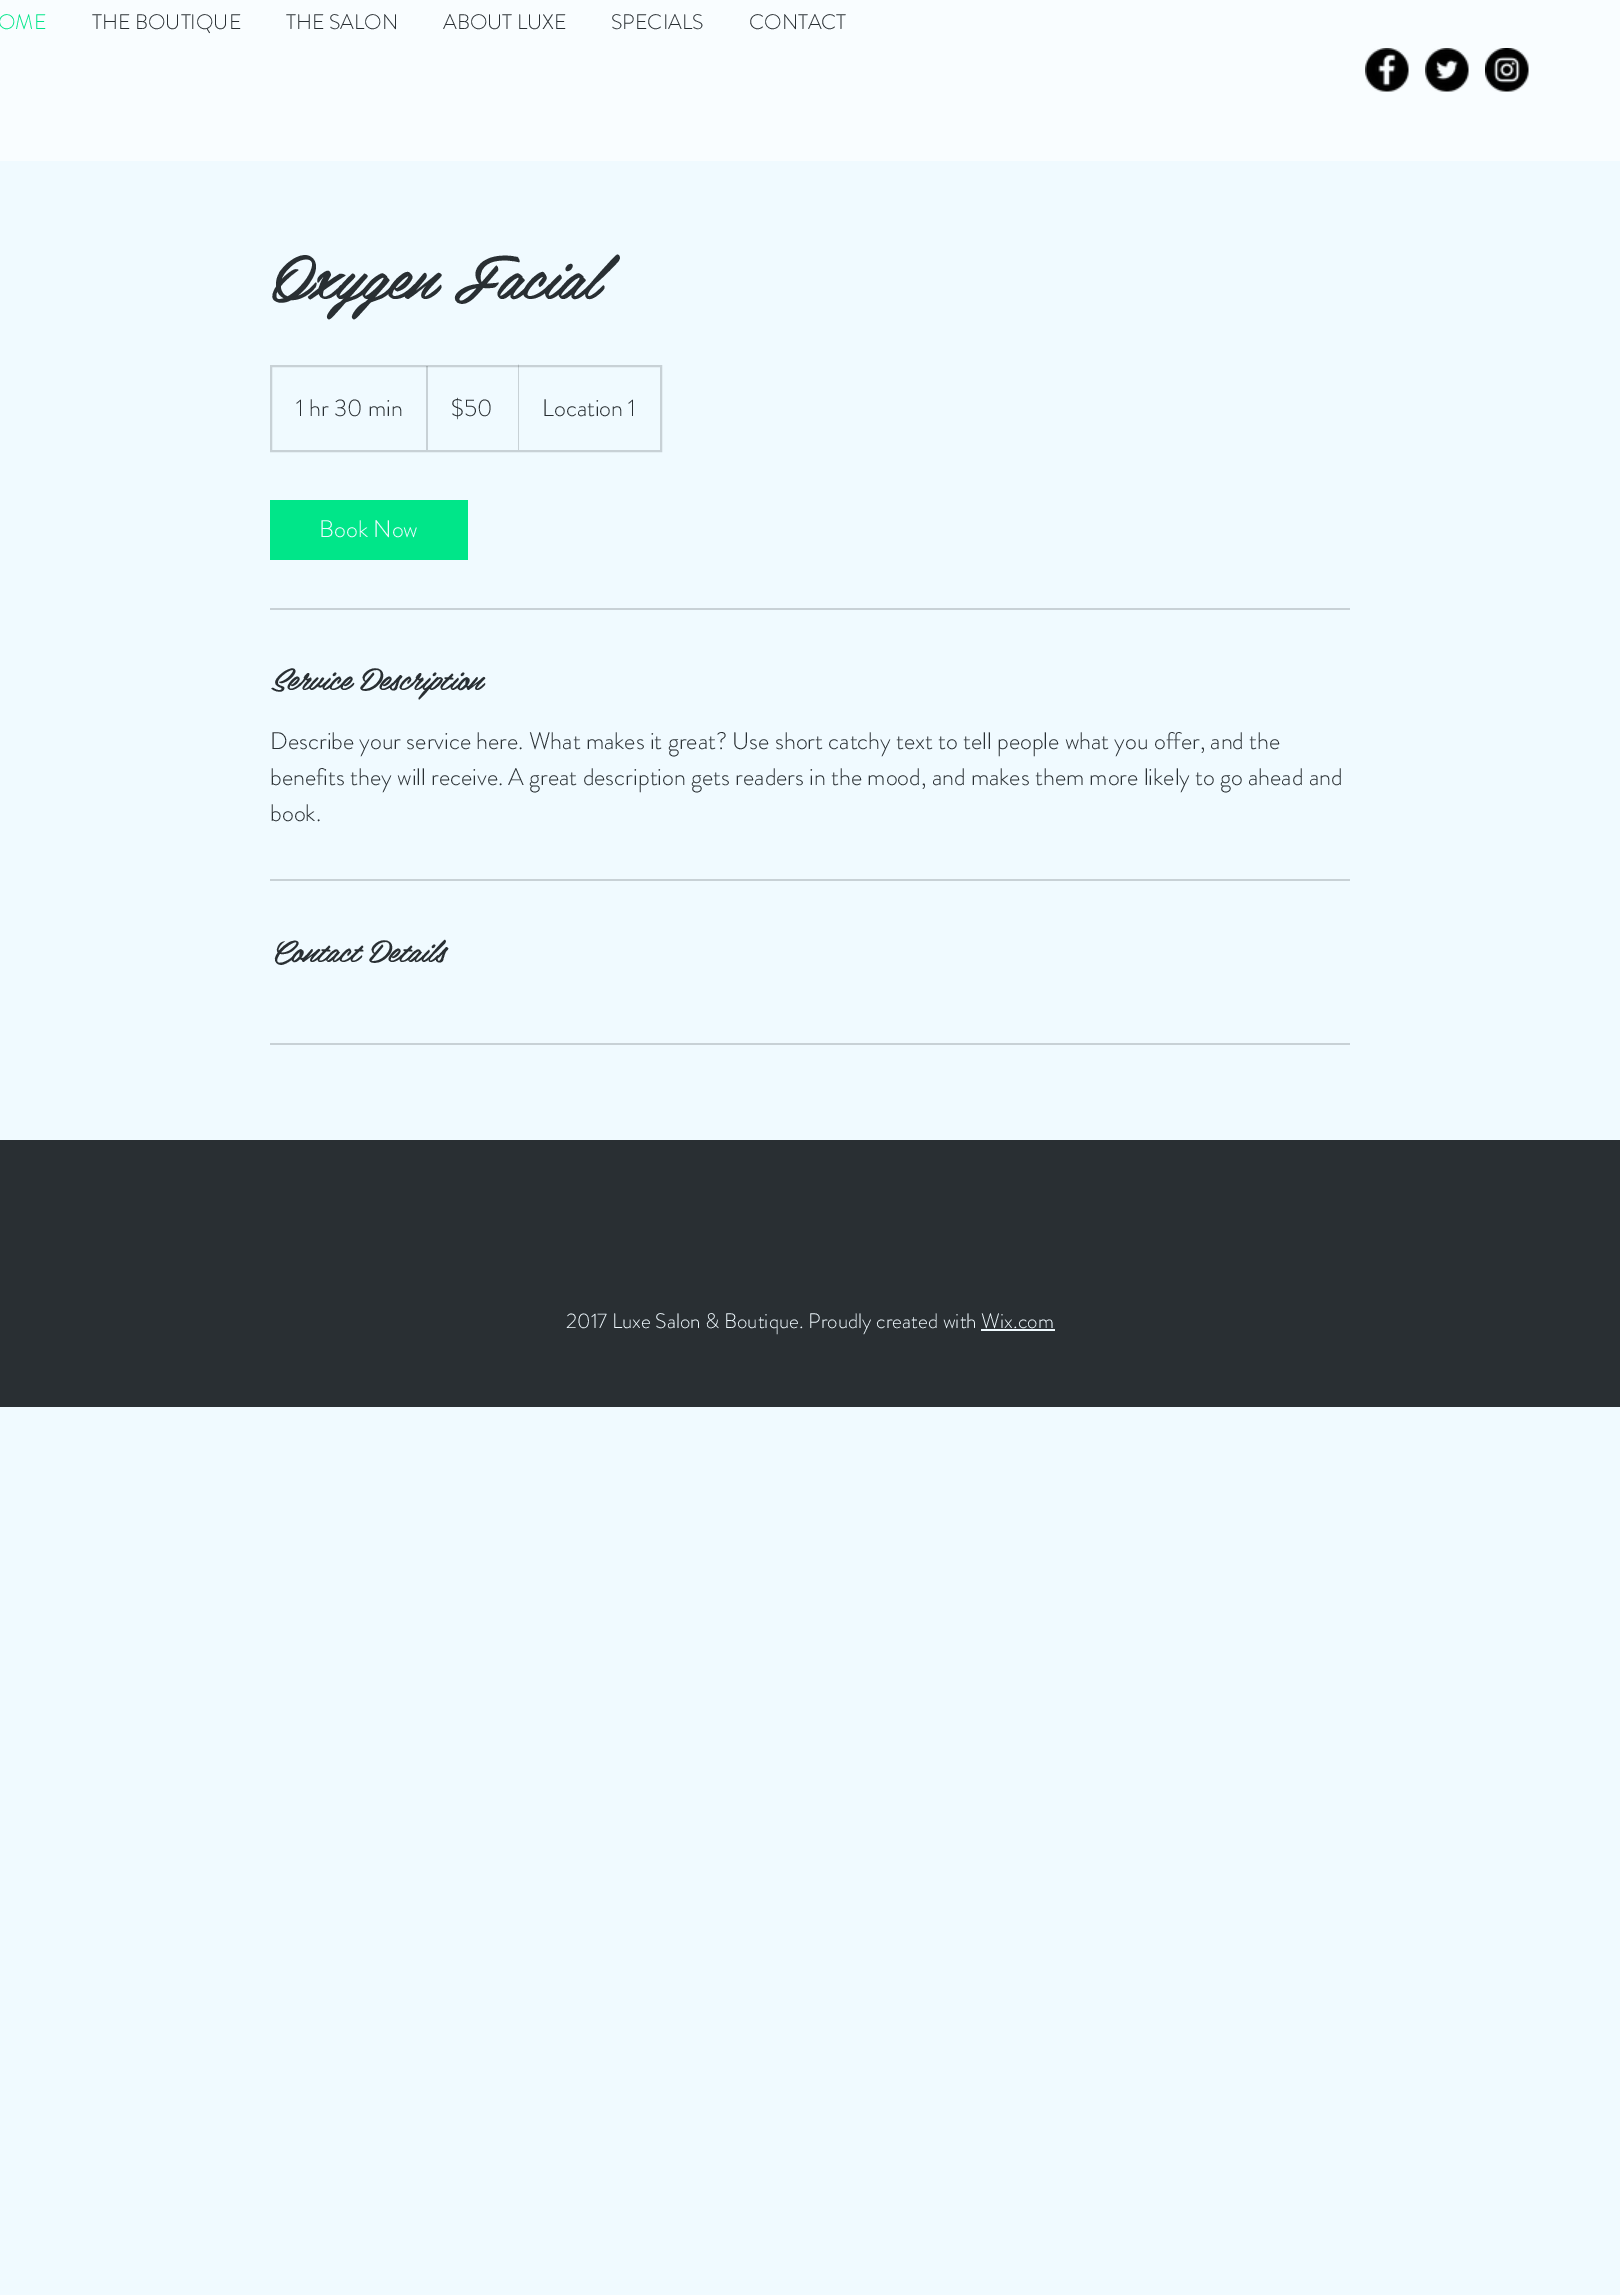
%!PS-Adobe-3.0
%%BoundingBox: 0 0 1620 2295
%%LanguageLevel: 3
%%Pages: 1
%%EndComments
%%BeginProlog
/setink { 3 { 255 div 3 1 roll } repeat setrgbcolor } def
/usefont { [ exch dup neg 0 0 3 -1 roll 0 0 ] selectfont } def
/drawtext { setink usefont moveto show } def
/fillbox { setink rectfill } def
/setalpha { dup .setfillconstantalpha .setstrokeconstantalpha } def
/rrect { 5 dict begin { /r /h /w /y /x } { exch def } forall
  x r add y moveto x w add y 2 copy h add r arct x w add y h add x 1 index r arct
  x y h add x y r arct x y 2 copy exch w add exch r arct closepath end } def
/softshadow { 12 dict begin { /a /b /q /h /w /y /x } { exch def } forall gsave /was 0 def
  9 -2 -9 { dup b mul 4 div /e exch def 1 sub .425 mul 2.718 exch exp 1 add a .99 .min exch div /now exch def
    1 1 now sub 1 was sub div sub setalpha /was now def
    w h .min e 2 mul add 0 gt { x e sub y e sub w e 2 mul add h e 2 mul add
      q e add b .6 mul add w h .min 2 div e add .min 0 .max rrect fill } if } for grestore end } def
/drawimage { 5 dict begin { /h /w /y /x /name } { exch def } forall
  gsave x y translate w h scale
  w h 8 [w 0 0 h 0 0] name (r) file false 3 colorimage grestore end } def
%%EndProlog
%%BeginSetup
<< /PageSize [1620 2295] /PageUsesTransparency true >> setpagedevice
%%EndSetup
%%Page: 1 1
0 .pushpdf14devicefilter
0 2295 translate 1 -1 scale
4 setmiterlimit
0 0 1620 2295 240 250 255 fillbox
gsave
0 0 moveto 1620 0 lineto 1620 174 lineto 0 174 lineto closepath 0 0 moveto 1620 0 lineto 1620 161 lineto 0 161 lineto closepath eoclip newpath
0 0 0 setink
0 0 1620 161 0 4 0.7 softshadow
grestore
0.6 setalpha
0 0 1620 161 255 255 255 fillbox
1 setalpha
(OME) -2 29 /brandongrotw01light-Light 21 0 230 137 drawtext
(THE BOUTIQUE) 92 29 /brandongrotw01light-Light 21 41 47 51 drawtext
(THE SALON) 286 29 /brandongrotw01light-Light 21 41 47 51 drawtext
(ABOUT LUXE) 443 29 /brandongrotw01light-Light 21 41 47 51 drawtext
(SPECIALS) 611 29 /brandongrotw01light-Light 21 41 47 51 drawtext
(CONTACT) 749 29 /brandongrotw01light-Light 21 41 47 51 drawtext
(assets/img1.rgb) 1365 48 44 44 drawimage
(assets/img2.rgb) 1425 48 44 44 drawimage
(assets/img3.rgb) 1485 48 44 44 drawimage
0 161 1620 9 240 250 255 fillbox
(Oxygen Facial) 270 299 /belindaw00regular-Italic 60 41 47 51 drawtext
200 209 214 setink
2 setlinewidth
271 366 390 85 rectstroke
(1 hr 30 min) 296 416 /brandongrotw01light-Light 24 41 47 51 drawtext
gsave
272 366 388 84 rectclip
0.2 setalpha
426 450 moveto 426 364 lineto 428 366 lineto 428 450 lineto closepath fill
grestore
($50) 451 416 /brandongrotw01light-Light 24 41 47 51 drawtext
0.2 setalpha
518 450 moveto 518 364 lineto 519 366 lineto 519 450 lineto closepath fill
1 setalpha
(Location 1) 542 416 /brandongrotw01light-Light 24 41 47 51 drawtext
270 500 198 60 0 230 137 fillbox
(Book Now) 319 537 /brandongrotw01light-Light 24 240 250 255 drawtext
270 608 1080 2 200 209 214 fillbox
(Service Description) 270 690 /belindaw00regular-Italic 30 41 47 51 drawtext
(Describe your service here. What makes it great? Use short catchy text to tell people what you offer, and the) 270 749 /brandongrotw01light-Light 24 41 47 51 drawtext
(benefits they will receive. A great description gets readers in the mood, and makes them more likely to go ahead and) 270 785 /brandongrotw01light-Light 24 41 47 51 drawtext
(book.) 270 821 /brandongrotw01light-Light 24 41 47 51 drawtext
270 879 1080 2 200 209 214 fillbox
(Contact Details) 270 962 /belindaw00regular-Italic 30 41 47 51 drawtext
270 1043 1080 2 200 209 214 fillbox
0 1140 1620 267 41 47 51 fillbox
(2017 Luxe Salon & Boutique. Proudly created with Wix.com) 566 1328 /brandongrotw01light-Light 21 240 250 255 drawtext
981 1329 74 2 240 250 255 fillbox
.poppdf14devicefilter showpage
%%EOF
